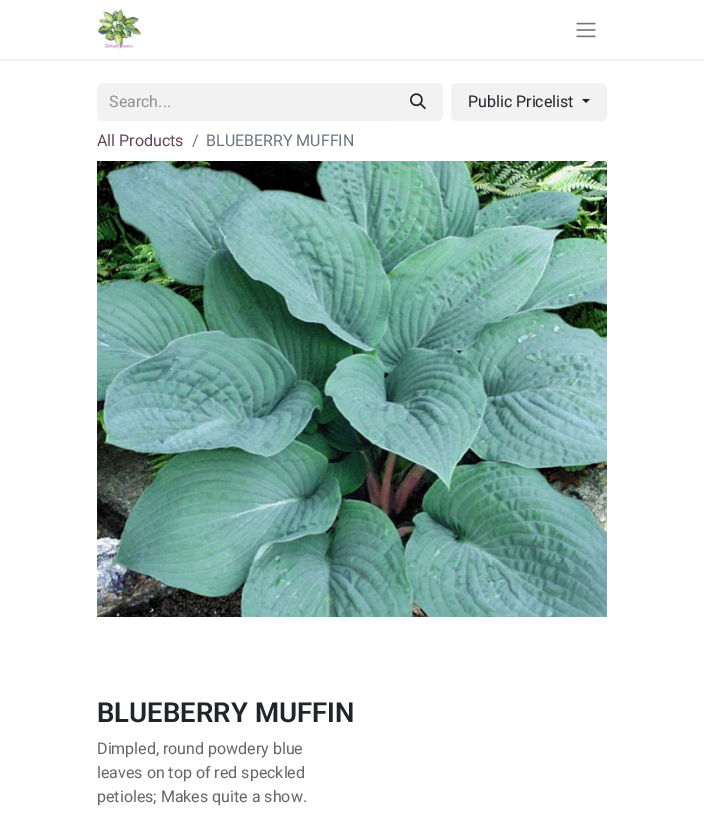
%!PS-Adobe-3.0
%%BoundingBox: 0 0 704 814
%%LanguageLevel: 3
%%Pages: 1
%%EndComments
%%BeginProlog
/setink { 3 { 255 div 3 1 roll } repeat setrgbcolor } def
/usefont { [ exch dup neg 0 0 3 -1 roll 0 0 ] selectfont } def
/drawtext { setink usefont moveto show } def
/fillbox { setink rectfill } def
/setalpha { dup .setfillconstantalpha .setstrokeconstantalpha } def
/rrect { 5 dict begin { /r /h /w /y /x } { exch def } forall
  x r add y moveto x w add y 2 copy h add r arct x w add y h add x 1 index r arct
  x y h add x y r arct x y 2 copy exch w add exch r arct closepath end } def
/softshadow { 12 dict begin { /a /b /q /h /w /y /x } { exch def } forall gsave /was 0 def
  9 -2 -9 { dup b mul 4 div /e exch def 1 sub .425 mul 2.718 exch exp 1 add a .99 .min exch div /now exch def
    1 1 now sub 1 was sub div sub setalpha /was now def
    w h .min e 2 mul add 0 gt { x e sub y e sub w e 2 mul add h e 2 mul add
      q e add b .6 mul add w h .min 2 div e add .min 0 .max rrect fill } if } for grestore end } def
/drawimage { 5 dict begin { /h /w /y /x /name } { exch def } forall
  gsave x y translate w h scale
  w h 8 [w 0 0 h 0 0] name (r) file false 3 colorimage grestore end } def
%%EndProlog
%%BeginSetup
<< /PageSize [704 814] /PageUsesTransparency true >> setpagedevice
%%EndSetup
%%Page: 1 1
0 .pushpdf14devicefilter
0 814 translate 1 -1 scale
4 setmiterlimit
0 0 704 814 255 255 255 fillbox
gsave
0 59 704 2 rectclip
0 0 0 setink
0 1 704 59 0 1.5 0.1 softshadow
grestore
(assets/img1.rgb) 97 9 45 40 drawimage
(assets/img2.rgb) 576 22 20 16 drawimage
243 242 242 setink
103 83 moveto 394 83 lineto 394 121 lineto 103 121 lineto 99.5 121 97 118.5 97 115 curveto 97 89 lineto 97 85.5 99.5 83 103 83 curveto closepath fill
(Search...) 109 107 /Roboto-Regular 16 144 146 148 drawtext
243 242 242 setink
393.5 83.5 moveto 437 83.5 lineto 440 83.5 442.5 86 442.5 89 curveto 442.5 115 lineto 442.5 118 440 120.5 437 120.5 curveto 393.5 120.5 lineto closepath gsave fill grestore
stroke
(assets/img3.rgb) 410 93 16 17 drawimage
451.5 83.5 155 37 5.5 rrect gsave fill grestore
stroke
(Public Pricelist) 468 107 /Roboto-Regular 16 33 37 41 drawtext
582 99 moveto 590 99 lineto 586 103 lineto closepath fill
(All Products) 97 146 /Roboto-Regular 16 101 67 92 drawtext
(/) 192 146 /Roboto-Regular 16 108 117 125 drawtext
(BLUEBERRY MUFFIN) 206 146 /Roboto-Regular 16 108 117 125 drawtext
(assets/img4.rgb) 97 161 510 456 drawimage
(BLUEBERRY MUFFIN) 97 722 /Roboto-SemiBold 27.5 33 37 41 drawtext
(Dimpled, round powdery blue) 97 754 /Roboto-Regular 16 100 102 105 drawtext
(leaves on top of red speckled) 97 778 /Roboto-Regular 16 100 102 105 drawtext
(petioles; Makes quite a show.) 97 802 /Roboto-Regular 16 100 102 105 drawtext
.poppdf14devicefilter showpage
%%EOF
